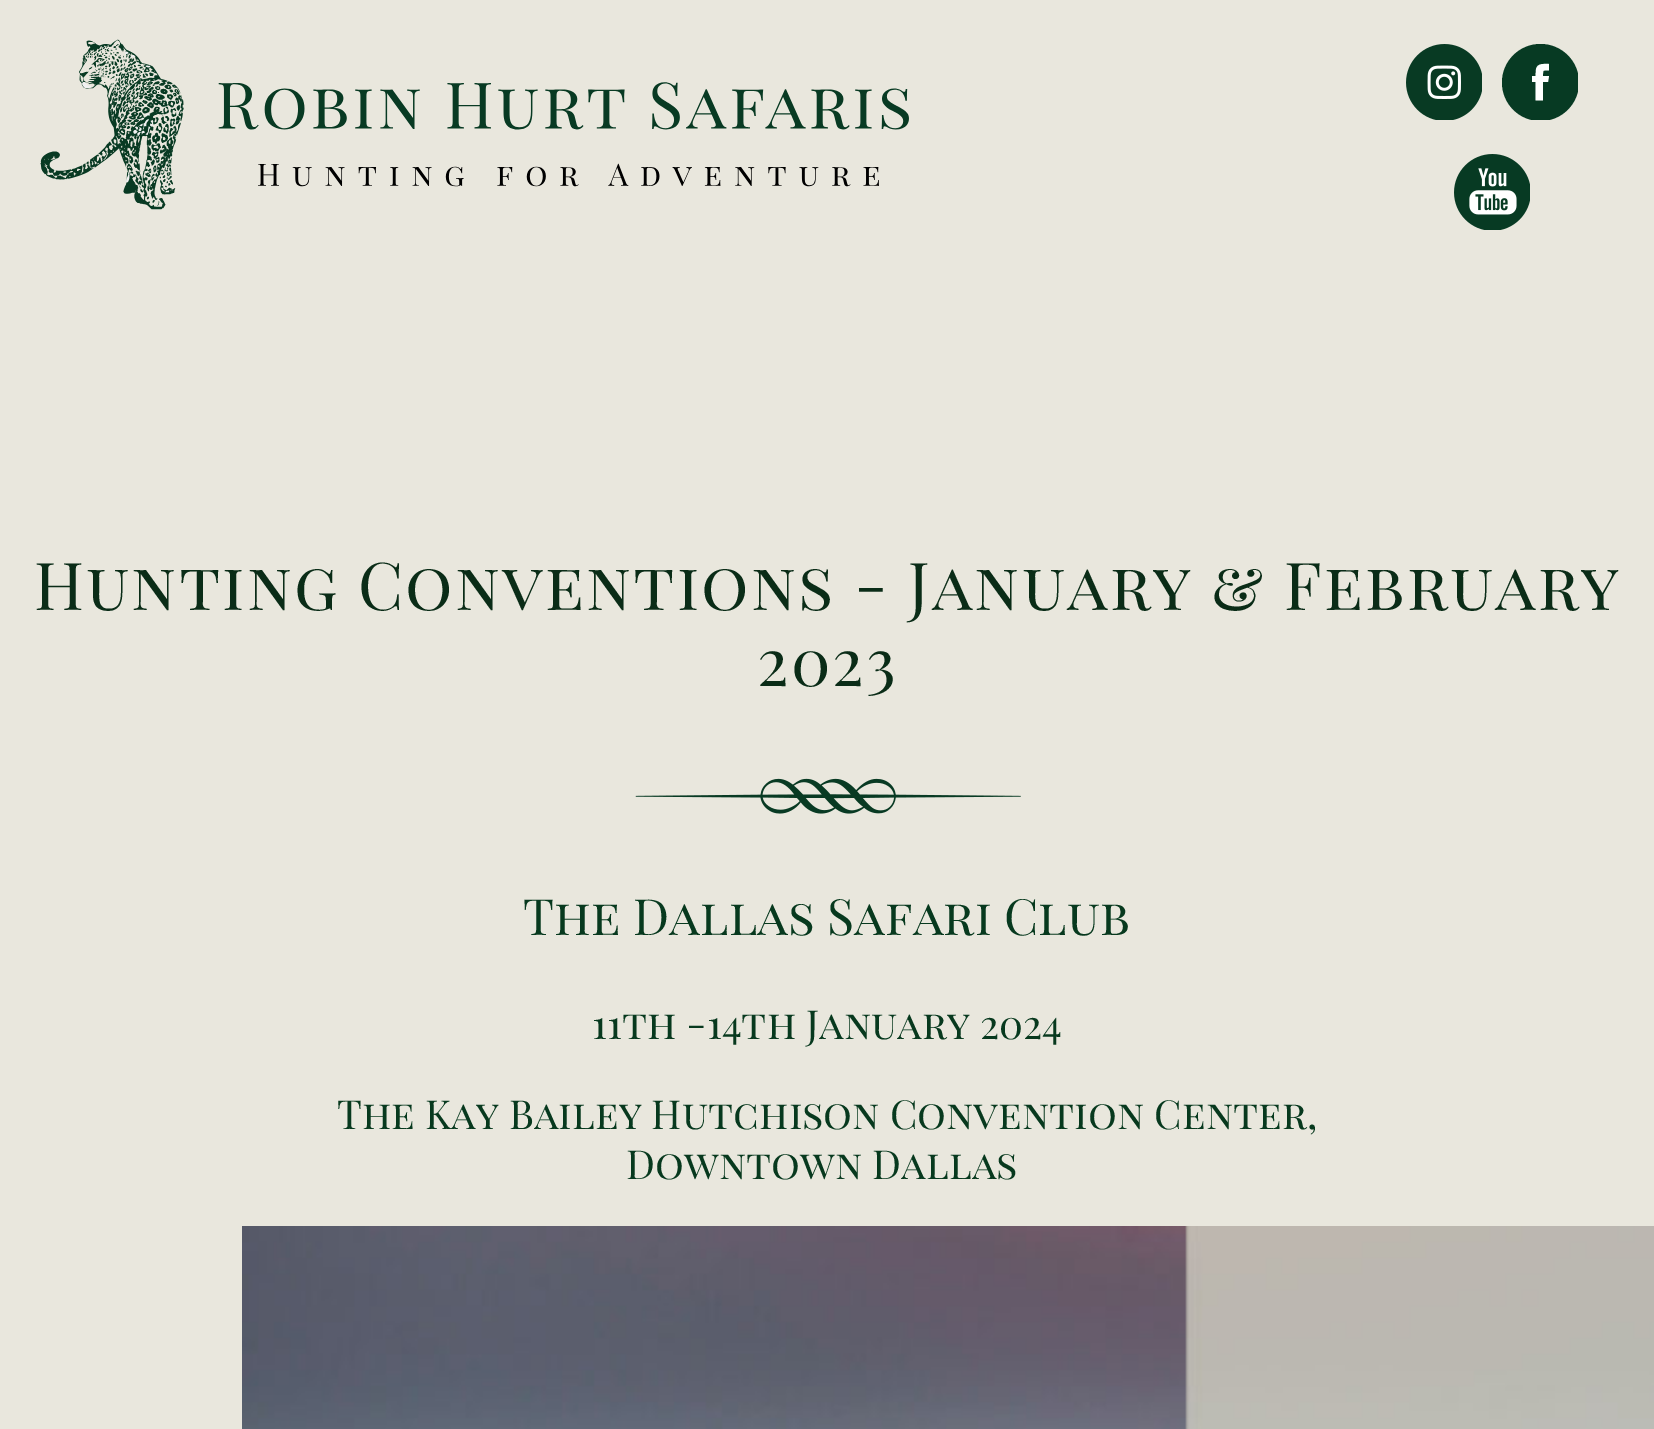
%!PS-Adobe-3.0
%%BoundingBox: 0 0 1654 1429
%%LanguageLevel: 3
%%Pages: 1
%%EndComments
%%BeginProlog
/setink { 3 { 255 div 3 1 roll } repeat setrgbcolor } def
/usefont { [ exch dup neg 0 0 3 -1 roll 0 0 ] selectfont } def
/drawtext { setink usefont moveto show } def
/fillbox { setink rectfill } def
/disc { newpath 0 360 arc closepath } def
/drawimage { 5 dict begin { /h /w /y /x /name } { exch def } forall
  gsave x y translate w h scale
  w h 8 [w 0 0 h 0 0] name (r) file false 3 colorimage grestore end } def
%%EndProlog
%%BeginSetup
<< /PageSize [1654 1429] >> setpagedevice
%%EndSetup
%%Page: 1 1
0 1429 translate 1 -1 scale
4 setmiterlimit
0 0 1654 1429 233 231 221 fillbox
(assets/img1.rgb) 40 39 869 171 drawimage
(assets/img2.rgb) 1406 44 76 76 drawimage
gsave
1502 44 76 76 rectclip
7 58 35 setink
1540.5 82.5 38.5 disc fill
grestore
255 255 255 setink
1535.5 100.5 moveto 1543 100.5 lineto 1543 82 lineto 1548 82 lineto 1549 76 lineto 1543 76 lineto 1543 69.5 1542.5 70.5 1549 70.5 curveto 1549 64 lineto 1544 64 1537 63 1536 69.5 curveto 1535.5 76 lineto 1532 76 lineto 1532 82 lineto 1535.5 82 lineto closepath fill
(assets/img3.rgb) 1454 154 76 76 drawimage
/PlayfairDisplaySC-Regular 66 usefont
10 44 23 setink
34 610 moveto 2 0 (Hunting Conventions - January & February) ashow
757 686 moveto 2 0 (2023) ashow
(assets/img4.rgb) 635 778 386 36 drawimage
(The Dallas Safari Club) 523 935 /PlayfairDisplaySC-Regular 50 7 57 30 drawtext
(11th -14th January 2024) 592 1039 /PlayfairDisplaySC-Regular 40 7 57 30 drawtext
(The Kay Bailey Hutchison Convention Center,) 337 1129 /PlayfairDisplaySC-Regular 40 7 57 30 drawtext
(Downtown Dallas) 626 1179 /PlayfairDisplaySC-Regular 40 7 57 30 drawtext
(assets/img5.rgb) 242 1226 1412 203 drawimage
showpage
%%EOF
